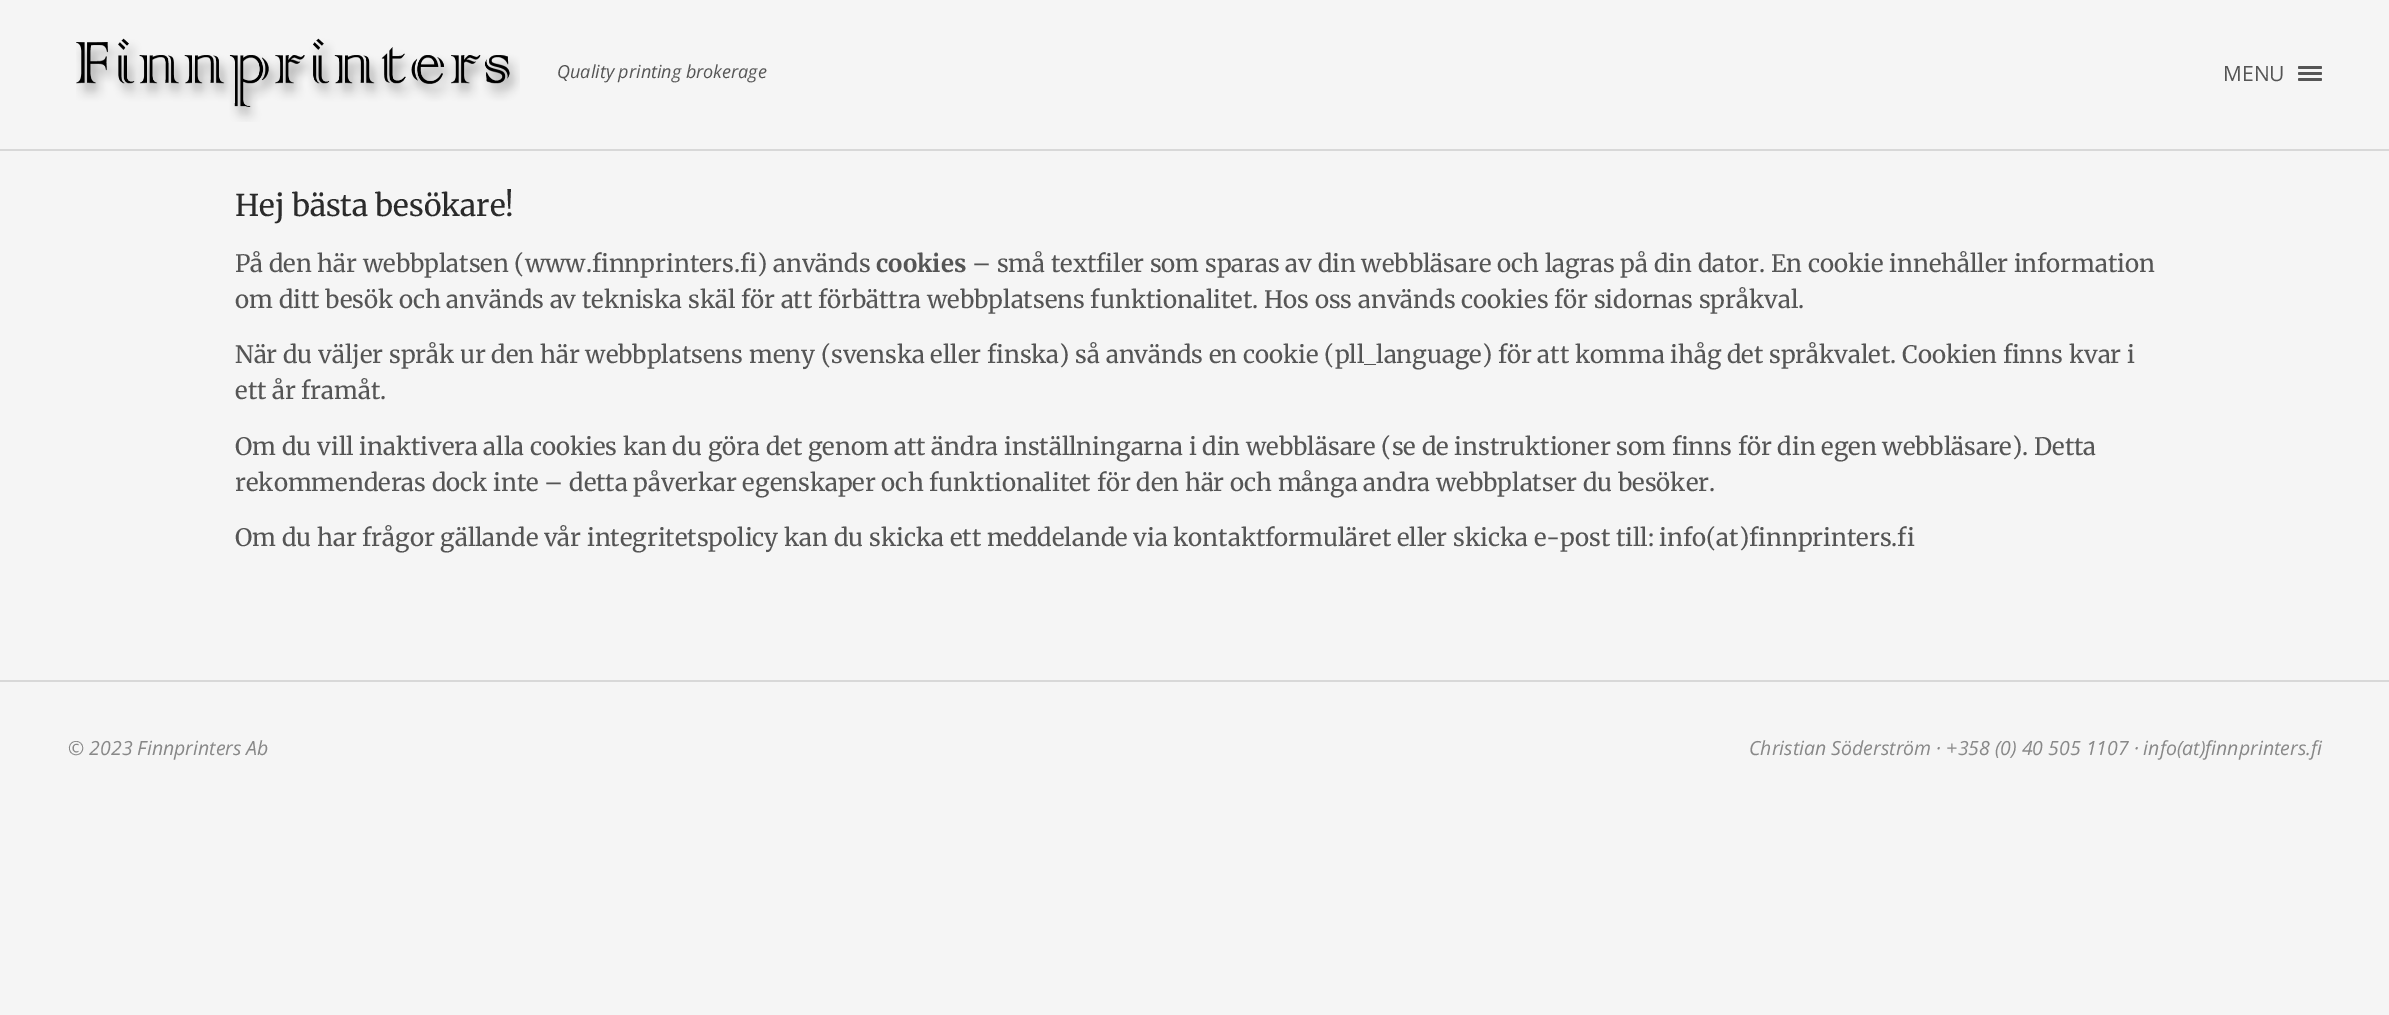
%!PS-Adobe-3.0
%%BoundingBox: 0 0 2389 1015
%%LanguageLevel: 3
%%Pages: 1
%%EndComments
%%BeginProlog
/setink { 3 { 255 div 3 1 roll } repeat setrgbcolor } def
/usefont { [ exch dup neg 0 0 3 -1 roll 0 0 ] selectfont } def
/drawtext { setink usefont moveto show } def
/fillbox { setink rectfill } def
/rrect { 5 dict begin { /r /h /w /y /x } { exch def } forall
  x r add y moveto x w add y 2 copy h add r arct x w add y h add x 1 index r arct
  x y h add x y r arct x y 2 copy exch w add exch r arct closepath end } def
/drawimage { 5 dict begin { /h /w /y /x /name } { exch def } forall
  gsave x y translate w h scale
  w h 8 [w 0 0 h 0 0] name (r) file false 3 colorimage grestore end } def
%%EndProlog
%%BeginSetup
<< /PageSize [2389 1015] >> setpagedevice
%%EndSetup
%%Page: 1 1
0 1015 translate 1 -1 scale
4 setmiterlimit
0 0 2389 1015 245 245 245 fillbox
0 149 2389 2 216 216 216 fillbox
(assets/img1.rgb) 76 38 444 84 drawimage
(Quality printing brokerage) 557 78 /OpenSans-Italic 18 85 85 85 drawtext
(MENU) 2223 81 /OpenSans-Regular 21 85 85 85 drawtext
2298 66 24 3 1.5 rrect fill
2298 72 24 3 1.5 rrect fill
2298 78 24 3 1.5 rrect fill
(Hej bästa besökare!) 235 216 /Merriweather-Regular 30 43 43 43 drawtext
(På den här webbplatsen \(www.finnprinters.fi\) används) 235 272 /Merriweather-Regular 24 85 85 85 drawtext
(cookies) 876 272 /Merriweather-Bold 24 85 85 85 drawtext
(– små textfiler som sparas av din webbläsare och lagras på din dator. En cookie innehåller information) 972 272 /Merriweather-Regular 24 85 85 85 drawtext
(om ditt besök och används av tekniska skäl för att förbättra webbplatsens funktionalitet. Hos oss används cookies för sidornas språkval.) 235 308 /Merriweather-Regular 24 85 85 85 drawtext
(När du väljer språk ur den här webbplatsens meny \(svenska eller finska\) så används en cookie \(pll_language\) för att komma ihåg det språkvalet. Cookien finns kvar i) 235 363 /Merriweather-Regular 24 85 85 85 drawtext
(ett år framåt.) 235 399 /Merriweather-Regular 24 85 85 85 drawtext
(Om du vill inaktivera alla cookies kan du göra det genom att ändra inställningarna i din webbläsare \(se de instruktioner som finns för din egen webbläsare\). Detta) 235 455 /Merriweather-Regular 24 85 85 85 drawtext
(rekommenderas dock inte – detta påverkar egenskaper och funktionalitet för den här och många andra webbplatser du besöker.) 235 491 /Merriweather-Regular 24 85 85 85 drawtext
(Om du har frågor gällande vår integritetspolicy kan du skicka ett meddelande via kontaktformuläret eller skicka e-post till: info\(at\)finnprinters.fi) 235 546 /Merriweather-Regular 24 85 85 85 drawtext
0 680 2389 2 216 216 216 fillbox
(© 2023 Finnprinters Ab) 68 755 /OpenSans-Italic 19.5 136 136 136 drawtext
(Christian Söderström · +358 \(0\) 40 505 1107 · info\(at\)finnprinters.fi) 1749 755 /OpenSans-Italic 19.5 136 136 136 drawtext
showpage
%%EOF
